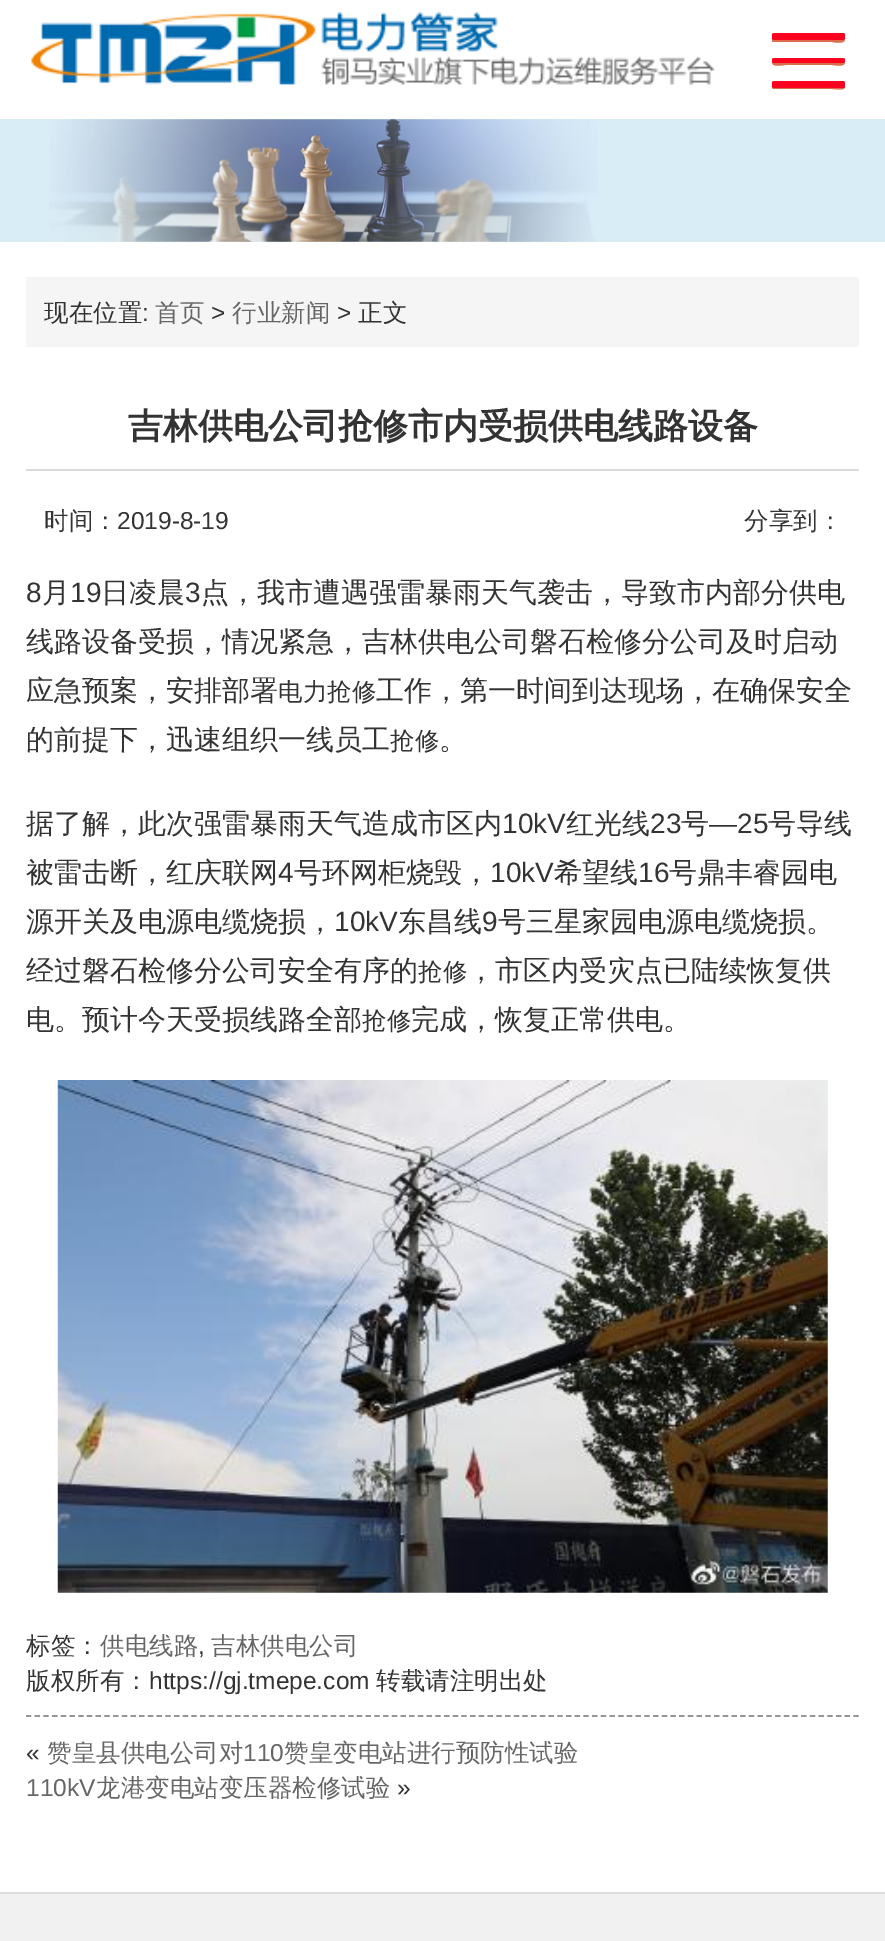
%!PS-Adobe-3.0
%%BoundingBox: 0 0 885 1941
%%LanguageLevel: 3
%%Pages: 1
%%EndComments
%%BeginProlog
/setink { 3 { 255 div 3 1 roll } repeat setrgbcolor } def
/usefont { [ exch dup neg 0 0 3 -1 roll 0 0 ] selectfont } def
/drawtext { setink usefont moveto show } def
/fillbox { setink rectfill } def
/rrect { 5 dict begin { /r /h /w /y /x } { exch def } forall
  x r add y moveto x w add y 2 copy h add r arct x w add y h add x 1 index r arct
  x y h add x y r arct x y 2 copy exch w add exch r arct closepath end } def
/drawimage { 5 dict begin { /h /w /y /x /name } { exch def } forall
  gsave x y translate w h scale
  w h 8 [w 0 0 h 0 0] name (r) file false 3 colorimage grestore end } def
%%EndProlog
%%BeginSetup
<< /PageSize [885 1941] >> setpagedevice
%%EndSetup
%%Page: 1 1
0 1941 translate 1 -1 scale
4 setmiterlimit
0 0 885 1941 255 255 255 fillbox
(assets/img1.rgb) 31 12 684 75 drawimage
219 109 76 setink
772 39 moveto 772 41 772 42 774 42 curveto 832 42 lineto 832 42 845 45 845 39 curveto 844 40 lineto 785 40 lineto 774 40 lineto closepath fill
255 0 30 setink
772 33 73 7 2 rrect fill
219 109 76 setink
772 62 moveto 772 68 783 65 786 65 curveto 832 65 lineto 834 65 845 68 845 62 curveto 844 63 lineto 785 63 lineto 774 63 lineto closepath fill
255 0 30 setink
772 58 73 5 2 rrect fill
219 109 76 setink
772 87 moveto 772 88 772 88 773 89 curveto 832 89 lineto 836 89 845 91 845 87 curveto 844 87 lineto 785 88 lineto 774 88 lineto closepath fill
255 0 30 setink
772 81 73 7 2 rrect fill
0 119 885 123 217 237 247 fillbox
(assets/img2.rgb) 49 119 549 123 drawimage
26 277 833 70 245 245 245 fillbox
(现在位置) 44 321 /WenQuanYiZenHei-Medium 24.5 51 51 51 drawtext
(:) 142 321 /LiberationSans-Regular 24.5 51 51 51 drawtext
(首页) 155 321 /WenQuanYiZenHei-Medium 24.5 102 102 102 drawtext
(>) 211 321 /LiberationSans-Regular 24.5 51 51 51 drawtext
(行业新闻) 232 321 /WenQuanYiZenHei-Medium 24.5 102 102 102 drawtext
(>) 337 321 /LiberationSans-Regular 24.5 51 51 51 drawtext
(正文) 358 321 /WenQuanYiZenHei-Medium 24.5 51 51 51 drawtext
26 469 833 2 219 219 219 fillbox
(吉林供电公司抢修市内受损供电线路设备) 128 438 /WenQuanYiZenHei-Bold 35 51 51 51 drawtext
(时间：) 44 529 /WenQuanYiZenHei-Medium 24.5 51 51 51 drawtext
(2019-8-19) 117 529 /LiberationSans-Regular 24.5 51 51 51 drawtext
(分享到：) 744 529 /WenQuanYiZenHei-Medium 24.5 51 51 51 drawtext
(8) 26 602 /LiberationSans-Regular 28 51 51 51 drawtext
(月) 42 602 /WenQuanYiZenHei-Medium 28 51 51 51 drawtext
(19) 70 602 /LiberationSans-Regular 28 51 51 51 drawtext
(日凌晨) 101 602 /WenQuanYiZenHei-Medium 28 51 51 51 drawtext
(3) 185 602 /LiberationSans-Regular 28 51 51 51 drawtext
(点，我市遭遇强雷暴雨天气袭击，导致市内部分供电) 201 602 /WenQuanYiZenHei-Medium 28 51 51 51 drawtext
(线路设备受损，情况紧急，吉林供电公司磐石检修分公司及时启动) 26 651 /WenQuanYiZenHei-Medium 28 51 51 51 drawtext
(应急预案，安排部署) 26 700 /WenQuanYiZenHei-Medium 28 51 51 51 drawtext
(电力抢修) 278 700 /WenQuanYiZenHei-Medium 24.5 51 51 51 drawtext
(工作，第一时间到达现场，在确保安全) 376 700 /WenQuanYiZenHei-Medium 28 51 51 51 drawtext
(的前提下，迅速组织一线员工) 26 749 /WenQuanYiZenHei-Medium 28 51 51 51 drawtext
(抢修) 390 749 /WenQuanYiZenHei-Medium 24.5 51 51 51 drawtext
(。) 439 749 /WenQuanYiZenHei-Medium 28 51 51 51 drawtext
(据了解，此次强雷暴雨天气造成市区内) 26 833 /WenQuanYiZenHei-Medium 28 51 51 51 drawtext
(10kV) 502 833 /LiberationSans-Regular 28 51 51 51 drawtext
(红光线) 566 833 /WenQuanYiZenHei-Medium 28 51 51 51 drawtext
(23) 650 833 /LiberationSans-Regular 28 51 51 51 drawtext
(号) 681 833 /WenQuanYiZenHei-Medium 28 51 51 51 drawtext
(—25) 709 833 /LiberationSans-Regular 28 51 51 51 drawtext
(号导线) 768 833 /WenQuanYiZenHei-Medium 28 51 51 51 drawtext
(被雷击断，红庆联网) 26 882 /WenQuanYiZenHei-Medium 28 51 51 51 drawtext
(4) 278 882 /LiberationSans-Regular 28 51 51 51 drawtext
(号环网柜烧毁，) 294 882 /WenQuanYiZenHei-Medium 28 51 51 51 drawtext
(10kV) 490 882 /LiberationSans-Regular 28 51 51 51 drawtext
(希望线) 554 882 /WenQuanYiZenHei-Medium 28 51 51 51 drawtext
(16) 638 882 /LiberationSans-Regular 28 51 51 51 drawtext
(号鼎丰睿园电) 669 882 /WenQuanYiZenHei-Medium 28 51 51 51 drawtext
(源开关及电源电缆烧损，) 26 931 /WenQuanYiZenHei-Medium 28 51 51 51 drawtext
(10kV) 334 931 /LiberationSans-Regular 28 51 51 51 drawtext
(东昌线) 398 931 /WenQuanYiZenHei-Medium 28 51 51 51 drawtext
(9) 482 931 /LiberationSans-Regular 28 51 51 51 drawtext
(号三星家园电源电缆烧损。) 498 931 /WenQuanYiZenHei-Medium 28 51 51 51 drawtext
(经过磐石检修分公司安全有序的) 26 980 /WenQuanYiZenHei-Medium 28 51 51 51 drawtext
(抢修) 418 980 /WenQuanYiZenHei-Medium 24.5 51 51 51 drawtext
(，市区内受灾点已陆续恢复供) 467 980 /WenQuanYiZenHei-Medium 28 51 51 51 drawtext
(电。预计今天受损线路全部) 26 1029 /WenQuanYiZenHei-Medium 28 51 51 51 drawtext
(抢修) 362 1029 /WenQuanYiZenHei-Medium 24.5 51 51 51 drawtext
(完成，恢复正常供电。) 411 1029 /WenQuanYiZenHei-Medium 28 51 51 51 drawtext
(assets/img3.rgb) 57 1080 771 513 drawimage
149 149 149 setink
1.8 setlinewidth
[5.25 3.46] 0 setdash
26 1716 moveto 859 1716 lineto stroke
(标签：) 26 1654 /WenQuanYiZenHei-Medium 24.5 51 51 51 drawtext
(供电线路) 100 1654 /WenQuanYiZenHei-Medium 24.5 102 102 102 drawtext
(,) 198 1654 /LiberationSans-Regular 24.5 51 51 51 drawtext
(吉林供电公司) 211 1654 /WenQuanYiZenHei-Medium 24.5 102 102 102 drawtext
(版权所有：) 26 1689 /WenQuanYiZenHei-Medium 24.5 51 51 51 drawtext
(https://gj.tmepe.com) 149 1689 /LiberationSans-Regular 24.5 51 51 51 drawtext
(转载请注明出处) 376 1689 /WenQuanYiZenHei-Medium 24.5 51 51 51 drawtext
(«) 26 1761 /LiberationSans-Regular 24.5 51 51 51 drawtext
(赞皇县供电公司对) 47 1761 /WenQuanYiZenHei-Medium 24.5 102 102 102 drawtext
(110) 243 1761 /LiberationSans-Regular 24.5 102 102 102 drawtext
(赞皇变电站进行预防性试验) 284 1761 /WenQuanYiZenHei-Medium 24.5 102 102 102 drawtext
(110kV) 26 1796 /LiberationSans-Regular 24.5 102 102 102 drawtext
(龙港变电站变压器检修试验) 96 1796 /WenQuanYiZenHei-Medium 24.5 102 102 102 drawtext
(») 397 1796 /LiberationSans-Regular 24.5 51 51 51 drawtext
0 1894 885 47 241 241 241 fillbox
0 1892 885 2 221 221 221 fillbox
showpage
%%EOF
